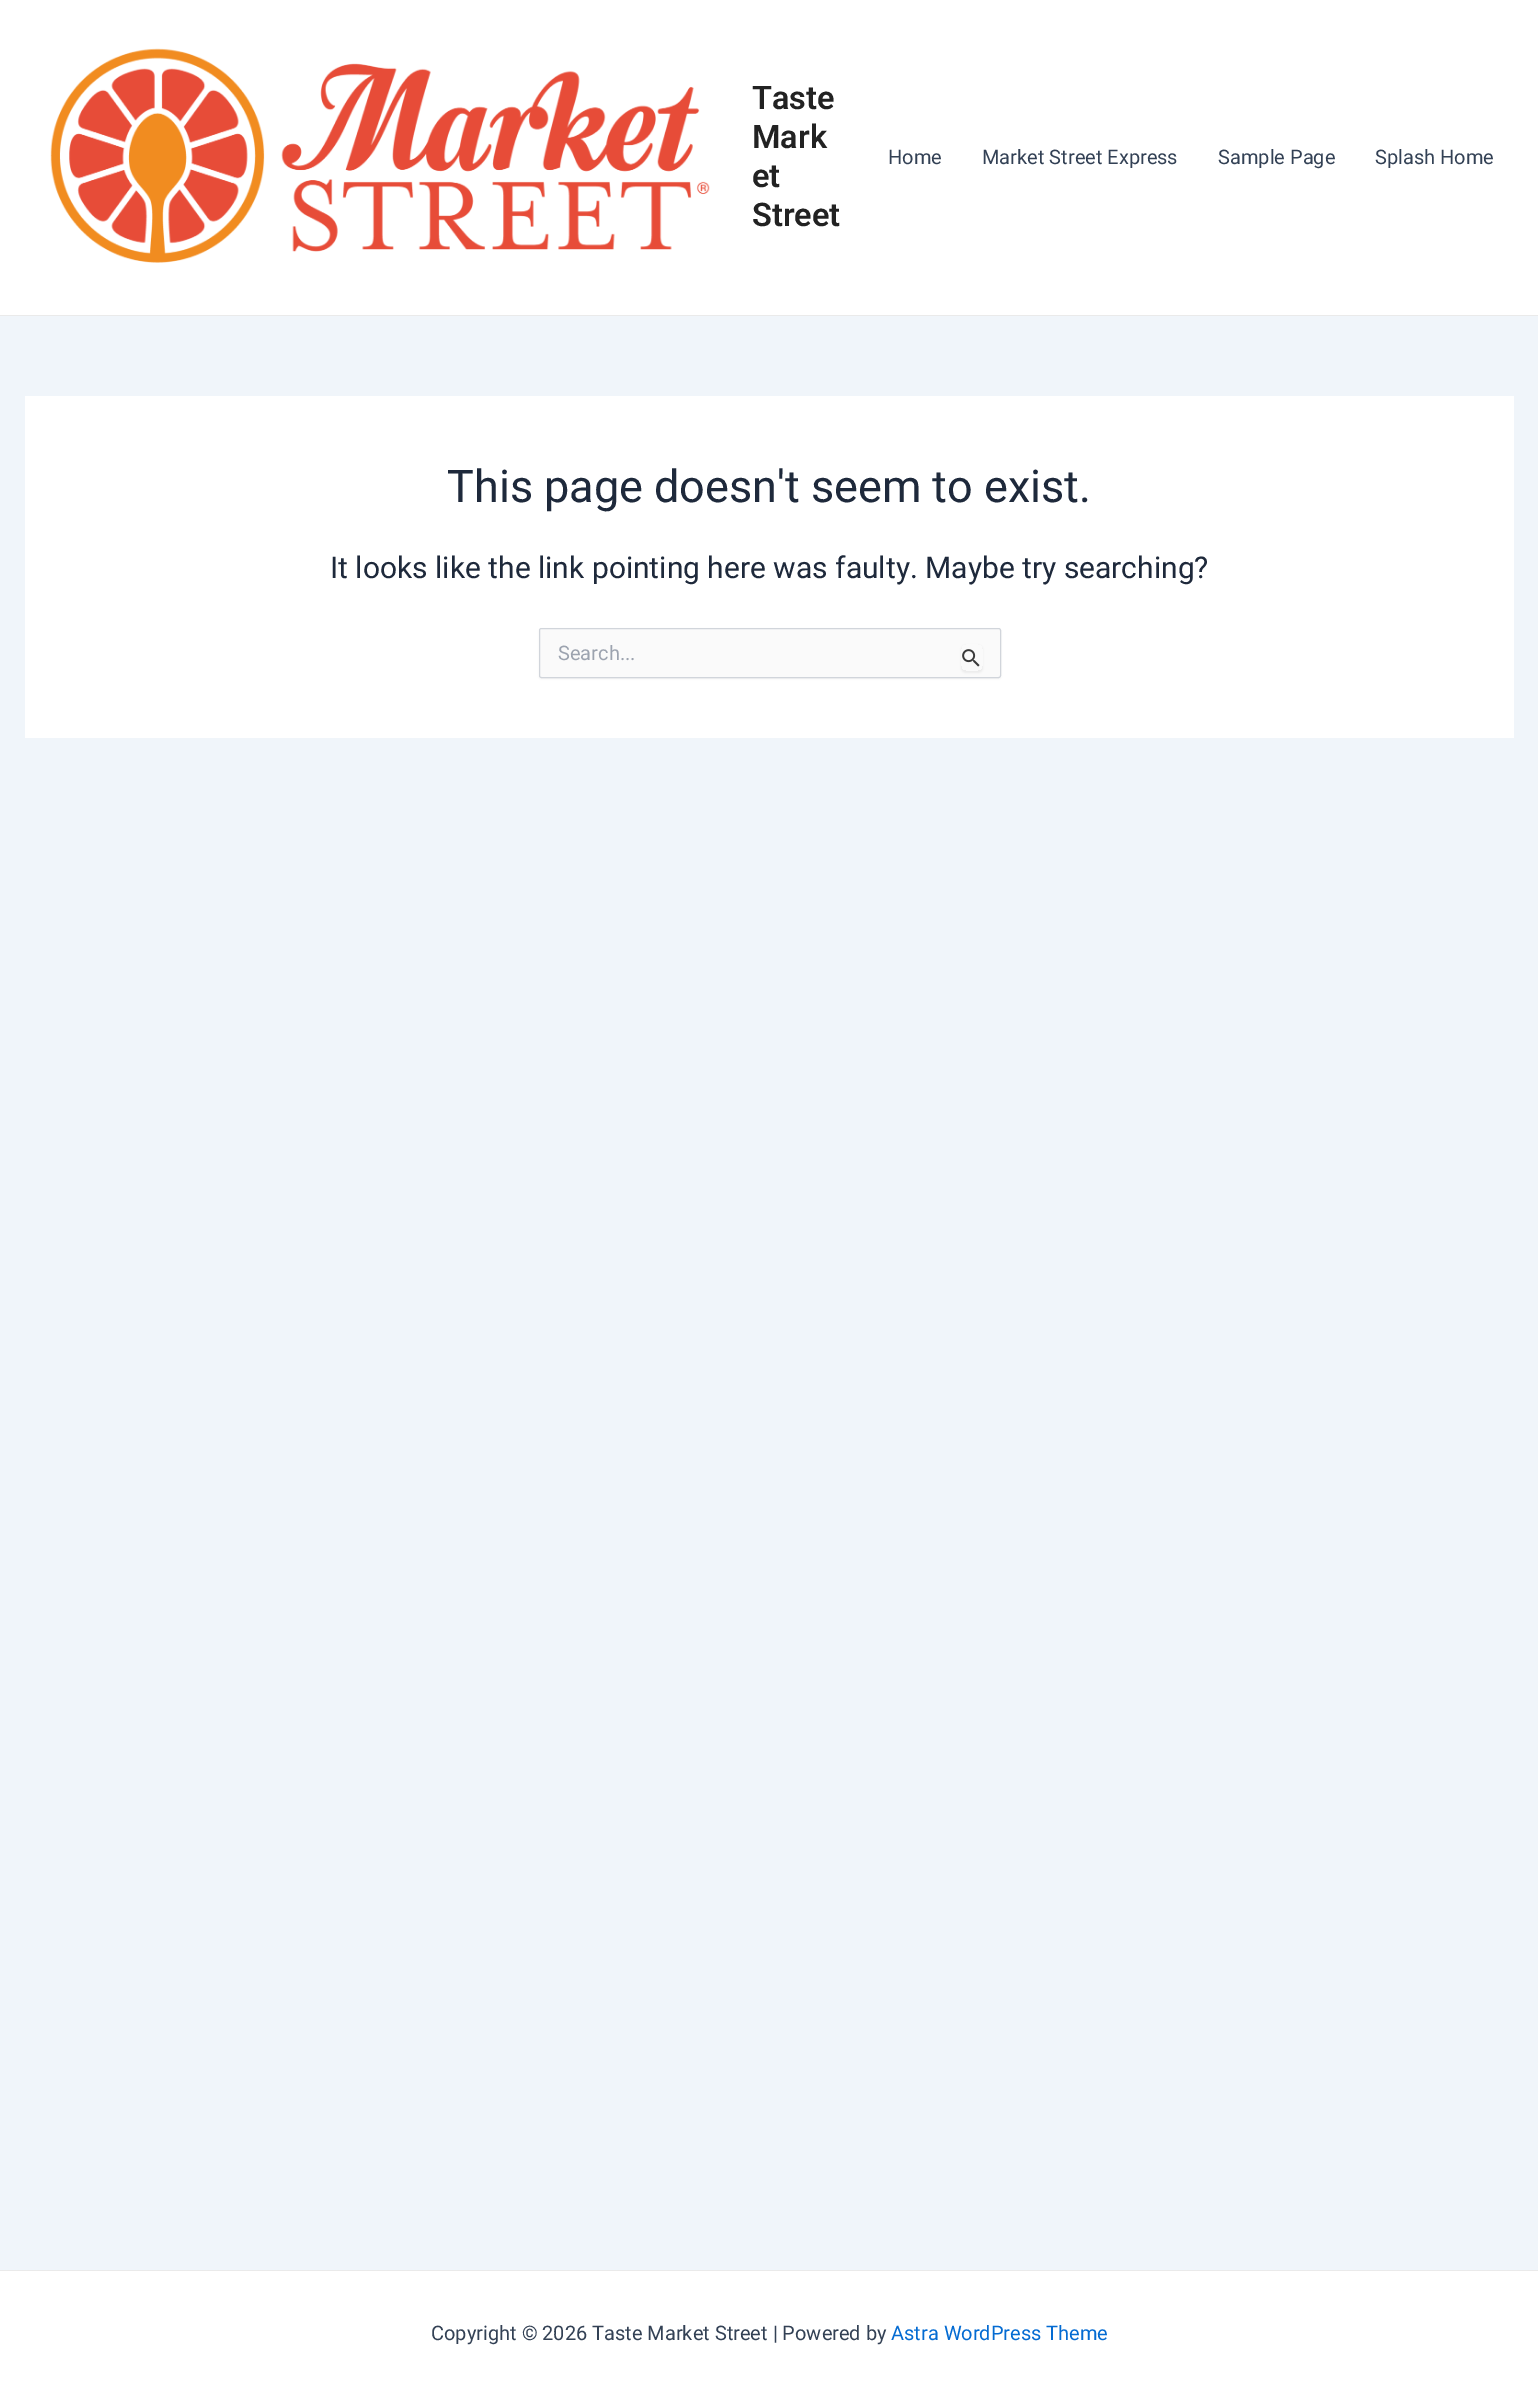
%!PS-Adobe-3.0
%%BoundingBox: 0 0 1538 2396
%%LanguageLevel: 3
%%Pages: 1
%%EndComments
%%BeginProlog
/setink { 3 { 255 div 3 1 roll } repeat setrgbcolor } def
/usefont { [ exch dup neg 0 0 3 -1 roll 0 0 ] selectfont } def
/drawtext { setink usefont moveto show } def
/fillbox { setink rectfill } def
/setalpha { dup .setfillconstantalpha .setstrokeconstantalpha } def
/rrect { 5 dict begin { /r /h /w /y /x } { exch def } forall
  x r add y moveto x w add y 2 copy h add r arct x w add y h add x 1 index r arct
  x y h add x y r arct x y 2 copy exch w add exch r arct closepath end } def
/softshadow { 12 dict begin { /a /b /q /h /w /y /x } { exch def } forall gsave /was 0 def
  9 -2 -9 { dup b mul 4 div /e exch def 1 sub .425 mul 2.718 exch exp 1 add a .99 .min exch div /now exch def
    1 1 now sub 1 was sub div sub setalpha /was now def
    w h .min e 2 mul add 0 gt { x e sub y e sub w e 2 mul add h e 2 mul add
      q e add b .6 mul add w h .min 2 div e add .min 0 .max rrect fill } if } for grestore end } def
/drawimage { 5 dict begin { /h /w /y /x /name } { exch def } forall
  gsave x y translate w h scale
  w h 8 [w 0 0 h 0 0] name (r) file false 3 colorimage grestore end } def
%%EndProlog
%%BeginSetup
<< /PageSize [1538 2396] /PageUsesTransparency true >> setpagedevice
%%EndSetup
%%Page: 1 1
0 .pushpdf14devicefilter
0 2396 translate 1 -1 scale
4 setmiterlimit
0 0 1538 2396 240 245 250 fillbox
0 0 1538 315 255 255 255 fillbox
0 315 1538 1 234 234 234 fillbox
(assets/img1.rgb) 50 48 660 215 drawimage
(Taste) 752 109 /Roboto-SemiBold 32.5 34 34 34 drawtext
(Mark) 752 148 /Roboto-SemiBold 32.5 34 34 34 drawtext
(et) 752 187 /Roboto-SemiBold 32.5 34 34 34 drawtext
(Street) 752 226 /Roboto-SemiBold 32.5 34 34 34 drawtext
(Home) 888 164 /Roboto-Regular 20 51 65 85 drawtext
(Market Street Express) 982 164 /Roboto-Regular 20 51 65 85 drawtext
(Sample Page) 1218 164 /Roboto-Regular 20 51 65 85 drawtext
(Splash Home) 1375 164 /Roboto-Regular 20 51 65 85 drawtext
25 396 1489 342 255 255 255 fillbox
(This page doesn't seem to exist.) 447 502 /Roboto-Regular 45 30 41 59 drawtext
(It looks like the link pointing here was faulty. Maybe try searching?) 330 578 /Roboto-Regular 30 30 41 59 drawtext
0 0 0 setink
539 629 462 50 2.5 1 0.05 softshadow
250 250 250 setink
539.5 628.5 461 49 2 rrect gsave fill grestore
209 213 219 setink
stroke
(Search...) 558 660 /Roboto-Regular 20 156 163 175 drawtext
gsave
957 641 moveto 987 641 lineto 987 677 lineto 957 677 lineto closepath 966 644 moveto 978 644 lineto 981 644 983 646 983 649 curveto 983 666 lineto 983 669 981 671 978 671 curveto 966 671 lineto 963 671 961 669 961 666 curveto 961 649 lineto 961 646 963 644 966 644 curveto closepath eoclip newpath
0 0 0 setink
961 645 22 28 5 1 0.05 softshadow
grestore
(assets/img2.rgb) 962 649 18 18 drawimage
0 2271 1538 125 255 255 255 fillbox
0 2270 1538 1 234 234 234 fillbox
(Copyright © 2026 Taste Market Street | Powered by) 431 2340 /Roboto-Regular 20 51 65 85 drawtext
(Astra WordPress Theme) 891 2340 /Roboto-Regular 20 4 107 210 drawtext
.poppdf14devicefilter showpage
%%EOF
